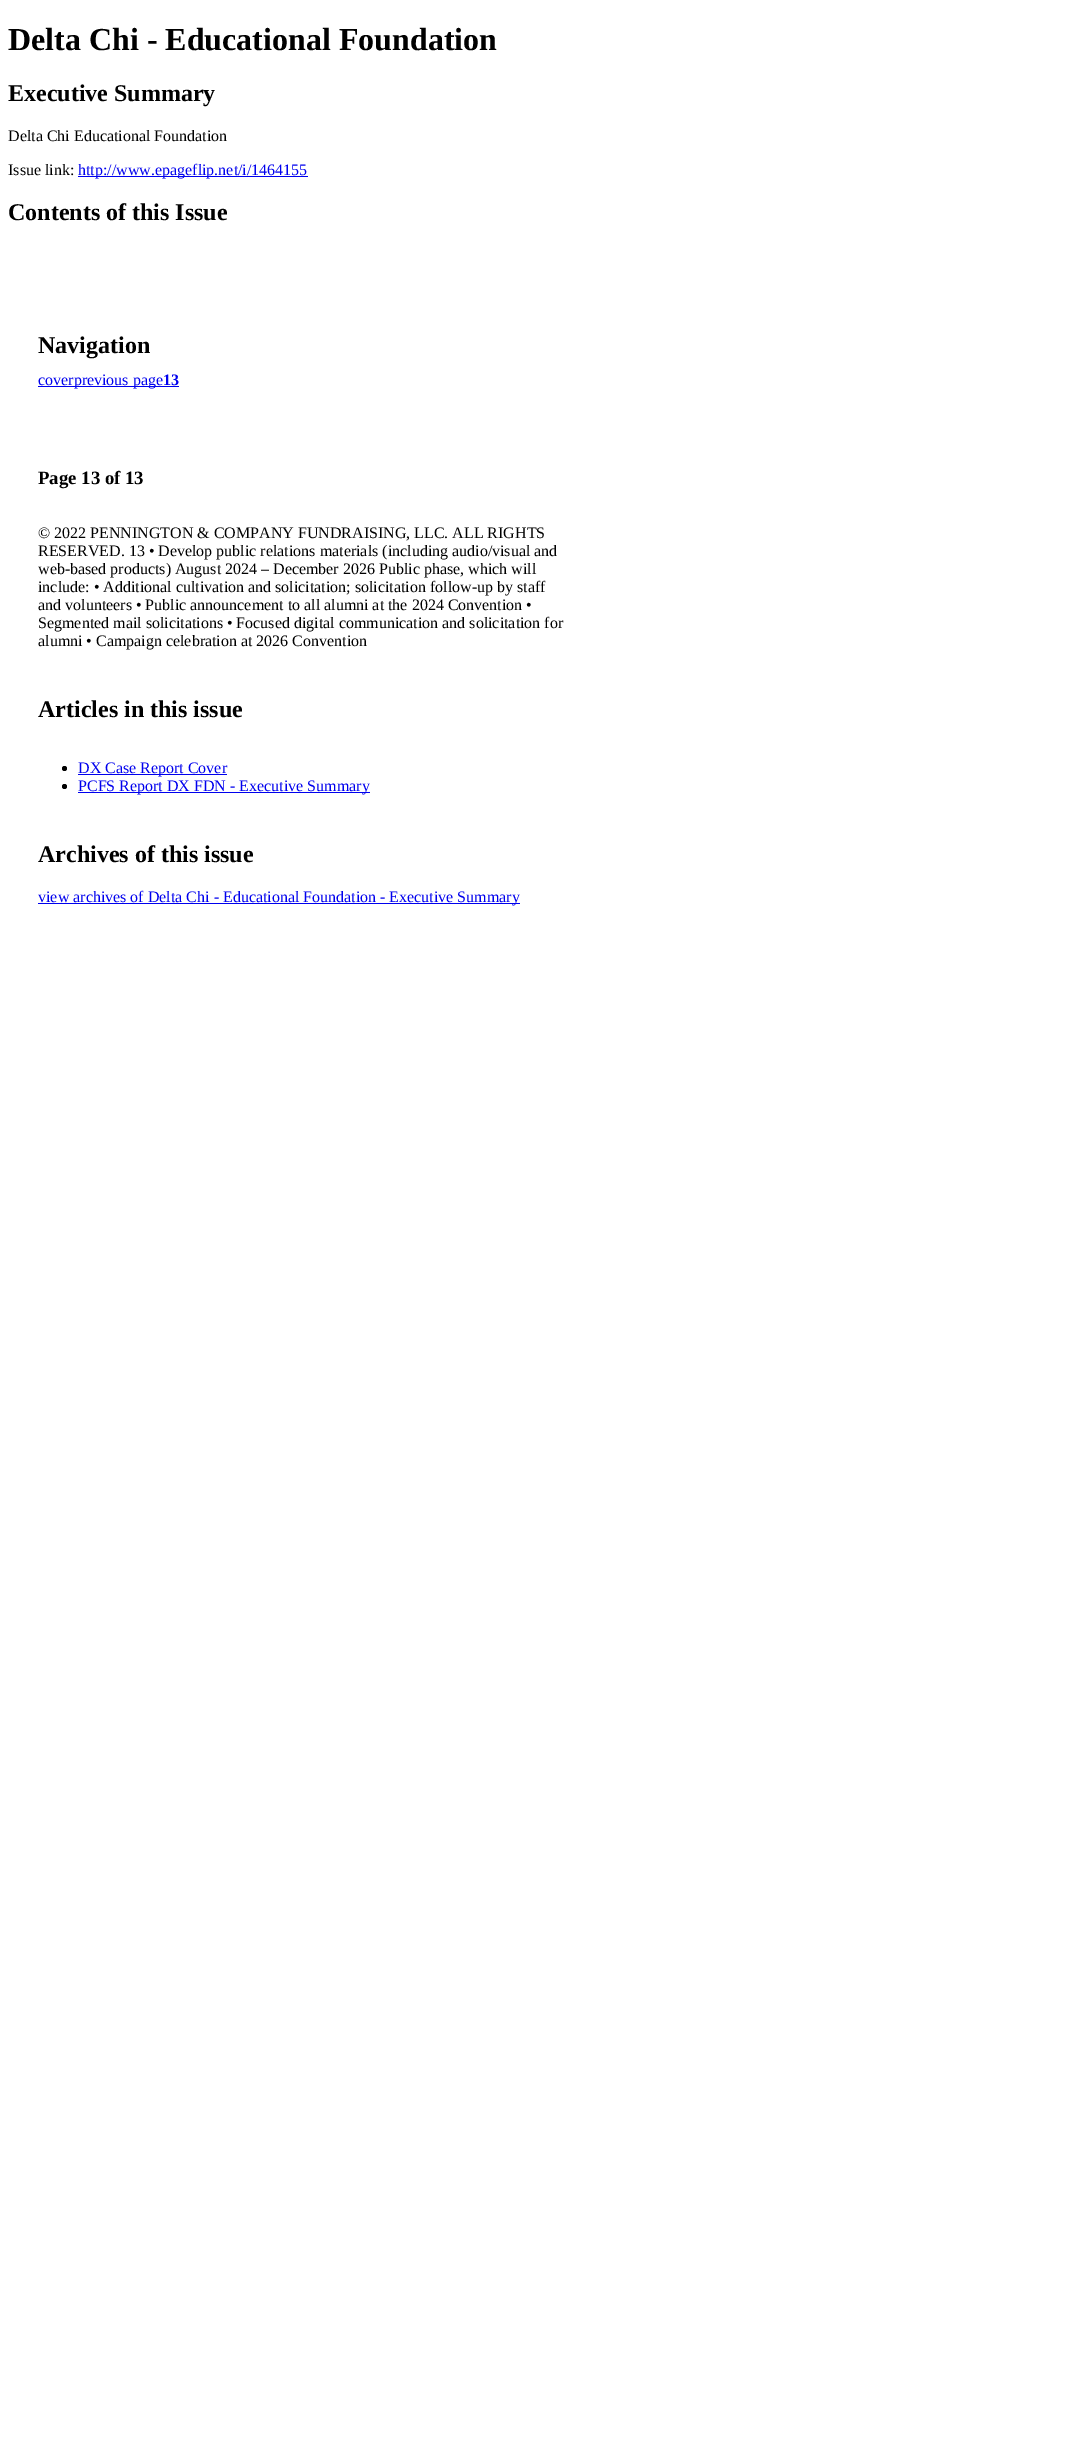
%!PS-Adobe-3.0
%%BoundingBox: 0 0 1073 2451
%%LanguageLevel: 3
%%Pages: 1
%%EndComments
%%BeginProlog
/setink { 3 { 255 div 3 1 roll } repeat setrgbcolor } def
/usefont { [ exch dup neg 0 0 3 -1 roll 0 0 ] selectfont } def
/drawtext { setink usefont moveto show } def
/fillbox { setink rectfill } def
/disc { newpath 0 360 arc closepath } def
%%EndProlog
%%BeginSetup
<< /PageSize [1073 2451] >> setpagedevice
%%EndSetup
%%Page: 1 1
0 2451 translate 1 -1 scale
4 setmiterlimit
0 0 1073 2451 255 255 255 fillbox
(Delta Chi - Educational Foundation) 8 50 /LiberationSerif-Bold 32 0 0 0 drawtext
(Executive Summary) 8 101 /LiberationSerif-Bold 24 0 0 0 drawtext
(Delta Chi Educational Foundation) 8 141 /LiberationSerif-Regular 16 0 0 0 drawtext
(Issue link:) 8 175 /LiberationSerif-Regular 16 0 0 0 drawtext
78 176 230 1 0 0 238 fillbox
(http://www.epageflip.net/i/1464155) 78 175 /LiberationSerif-Regular 16 0 0 238 drawtext
(Contents of this Issue) 8 220 /LiberationSerif-Bold 24 0 0 0 drawtext
(Navigation) 38 353 /LiberationSerif-Bold 24 0 0 0 drawtext
38 386 141 1 0 0 238 fillbox
(coverprevious page) 38 385 /LiberationSerif-Regular 16 0 0 238 drawtext
(13) 163 385 /LiberationSerif-Bold 16 0 0 238 drawtext
(Page 13 of 13) 38 484 /LiberationSerif-Bold 18.75 0 0 0 drawtext
(© 2022 PENNINGTON & COMPANY FUNDRAISING, LLC. ALL RIGHTS) 38 538 /LiberationSerif-Regular 16 0 0 0 drawtext
(RESERVED. 13 • Develop public relations materials \(including audio/visual and) 38 556 /LiberationSerif-Regular 16 0 0 0 drawtext
(web-based products\) August 2024 – December 2026 Public phase, which will) 38 574 /LiberationSerif-Regular 16 0 0 0 drawtext
(include: • Additional cultivation and solicitation; solicitation follow-up by staff) 38 592 /LiberationSerif-Regular 16 0 0 0 drawtext
(and volunteers • Public announcement to all alumni at the 2024 Convention •) 38 610 /LiberationSerif-Regular 16 0 0 0 drawtext
(Segmented mail solicitations • Focused digital communication and solicitation for) 38 628 /LiberationSerif-Regular 16 0 0 0 drawtext
(alumni • Campaign celebration at 2026 Convention) 38 646 /LiberationSerif-Regular 16 0 0 0 drawtext
(Articles in this issue) 38 717 /LiberationSerif-Bold 24 0 0 0 drawtext
64.5 768.5 2.5 disc fill
78 774 149 1 0 0 238 fillbox
(DX Case Report Cover) 78 773 /LiberationSerif-Regular 16 0 0 238 drawtext
0 0 0 setink
64.5 786.5 2.5 disc fill
78 792 292 1 0 0 238 fillbox
(PCFS Report DX FDN - Executive Summary) 78 791 /LiberationSerif-Regular 16 0 0 238 drawtext
(Archives of this issue) 38 862 /LiberationSerif-Bold 24 0 0 0 drawtext
38 903 482 1 0 0 238 fillbox
(view archives of Delta Chi - Educational Foundation - Executive Summary) 38 902 /LiberationSerif-Regular 16 0 0 238 drawtext
showpage
%%EOF
